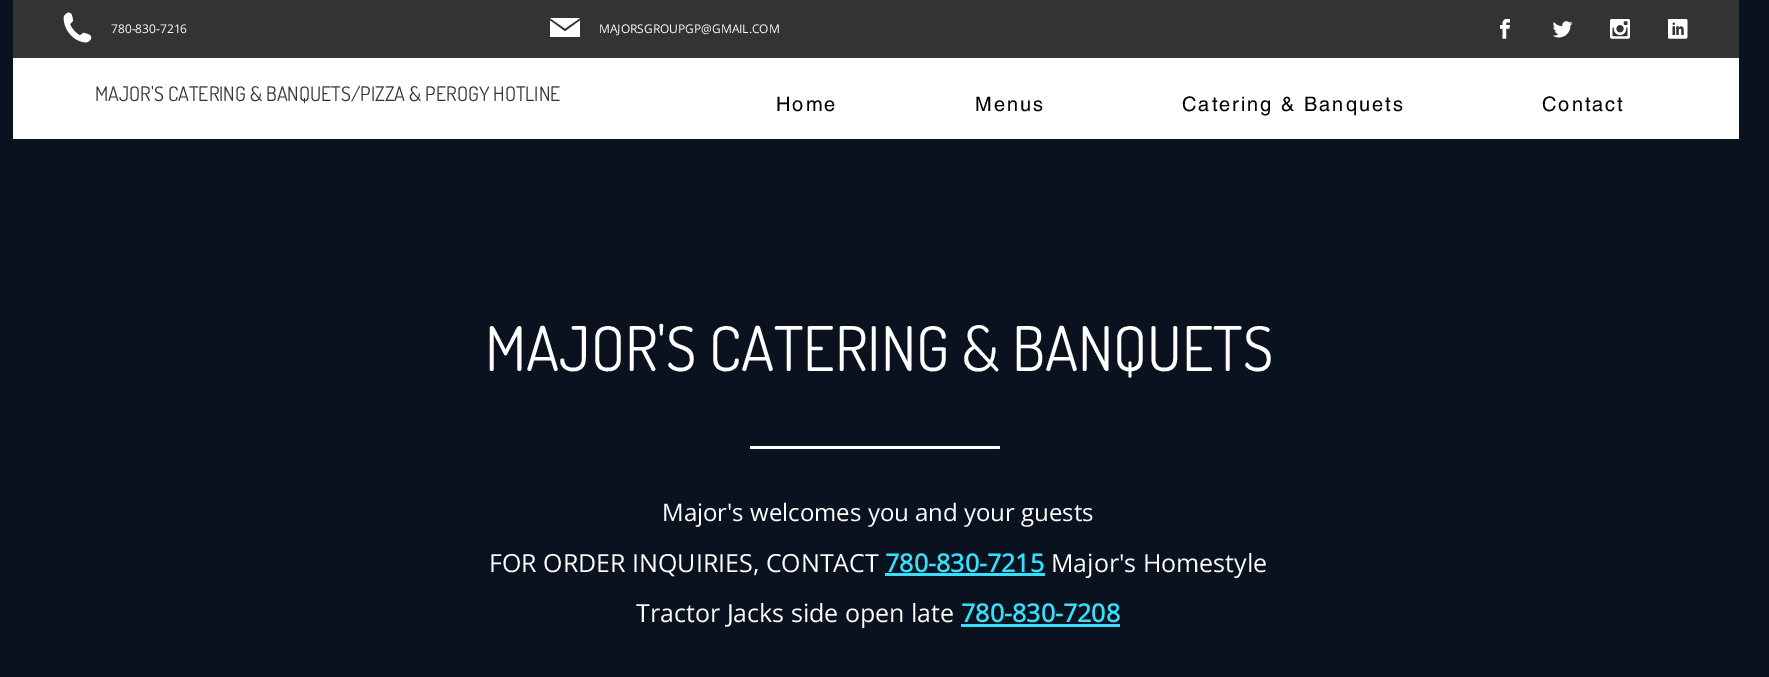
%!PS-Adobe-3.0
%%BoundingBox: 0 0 1769 677
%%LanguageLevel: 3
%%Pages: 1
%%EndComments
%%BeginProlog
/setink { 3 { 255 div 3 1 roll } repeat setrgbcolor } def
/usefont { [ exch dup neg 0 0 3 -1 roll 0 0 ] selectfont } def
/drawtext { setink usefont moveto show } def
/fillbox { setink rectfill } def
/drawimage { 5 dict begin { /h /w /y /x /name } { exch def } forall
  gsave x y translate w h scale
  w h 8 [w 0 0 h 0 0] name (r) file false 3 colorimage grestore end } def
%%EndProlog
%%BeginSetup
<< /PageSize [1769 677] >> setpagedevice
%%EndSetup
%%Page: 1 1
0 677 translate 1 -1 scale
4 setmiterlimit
0 0 1769 677 9 18 30 fillbox
13 0 1726 58 51 51 51 fillbox
(assets/img1.rgb) 63 12 29 31 drawimage
(780-830-7216) 111 33 /OpenSans-Regular 12 255 255 255 drawtext
565 31.5 moveto 550 20.5 lineto 550 37 lineto 580 37 lineto 580 20.5 lineto closepath fill
580 18 moveto 550 18 lineto 565 28.5 lineto closepath fill
(MAJORSGROUPGP@GMAIL.COM) 599 33 /OpenSans-Regular 12 255 255 255 drawtext
(assets/img2.rgb) 1500 19 10 20 drawimage
(assets/img3.rgb) 1553 21 20 17 drawimage
(assets/img4.rgb) 1610 19 20 20 drawimage
(assets/img5.rgb) 1668 19 20 20 drawimage
13 58 1726 81 255 255 255 fillbox
(MAJOR'S CATERING & BANQUETS/PIZZA & PEROGY HOTLINE) 95 101 /Dosis-Regular 20 51 51 51 drawtext
(MAJOR'S CATERING & BANQUETS) 485 371 /Dosis-Regular 61.6 255 255 255 drawtext
750 446 250 3 255 255 255 fillbox
(Major's welcomes you and your guests) 662 521 /OpenSans-Regular 24 255 255 255 drawtext
(FOR ORDER INQUIRIES, CONTACT) 489 572 /OpenSans-Regular 25 255 255 255 drawtext
(780-830-7215) 885 572 /OpenSans-Bold 25 55 223 252 drawtext
885 573 160 3 55 223 252 fillbox
(Major's Homestyle) 1051 572 /OpenSans-Regular 25 255 255 255 drawtext
(Tractor Jacks side open late) 636 622 /OpenSans-Regular 25 255 255 255 drawtext
(780-830-7208) 961 622 /OpenSans-Bold 25 55 223 252 drawtext
961 624 159 3 55 223 252 fillbox
/helvetica-Regular 20 usefont
0 0 0 setink
776 111 moveto 2 0 (Home) ashow
975 111 moveto 2 0 (Menus) ashow
1182 111 moveto 2 0 (Catering & Banquets) ashow
1542 111 moveto 2 0 (Contact) ashow
showpage
%%EOF
